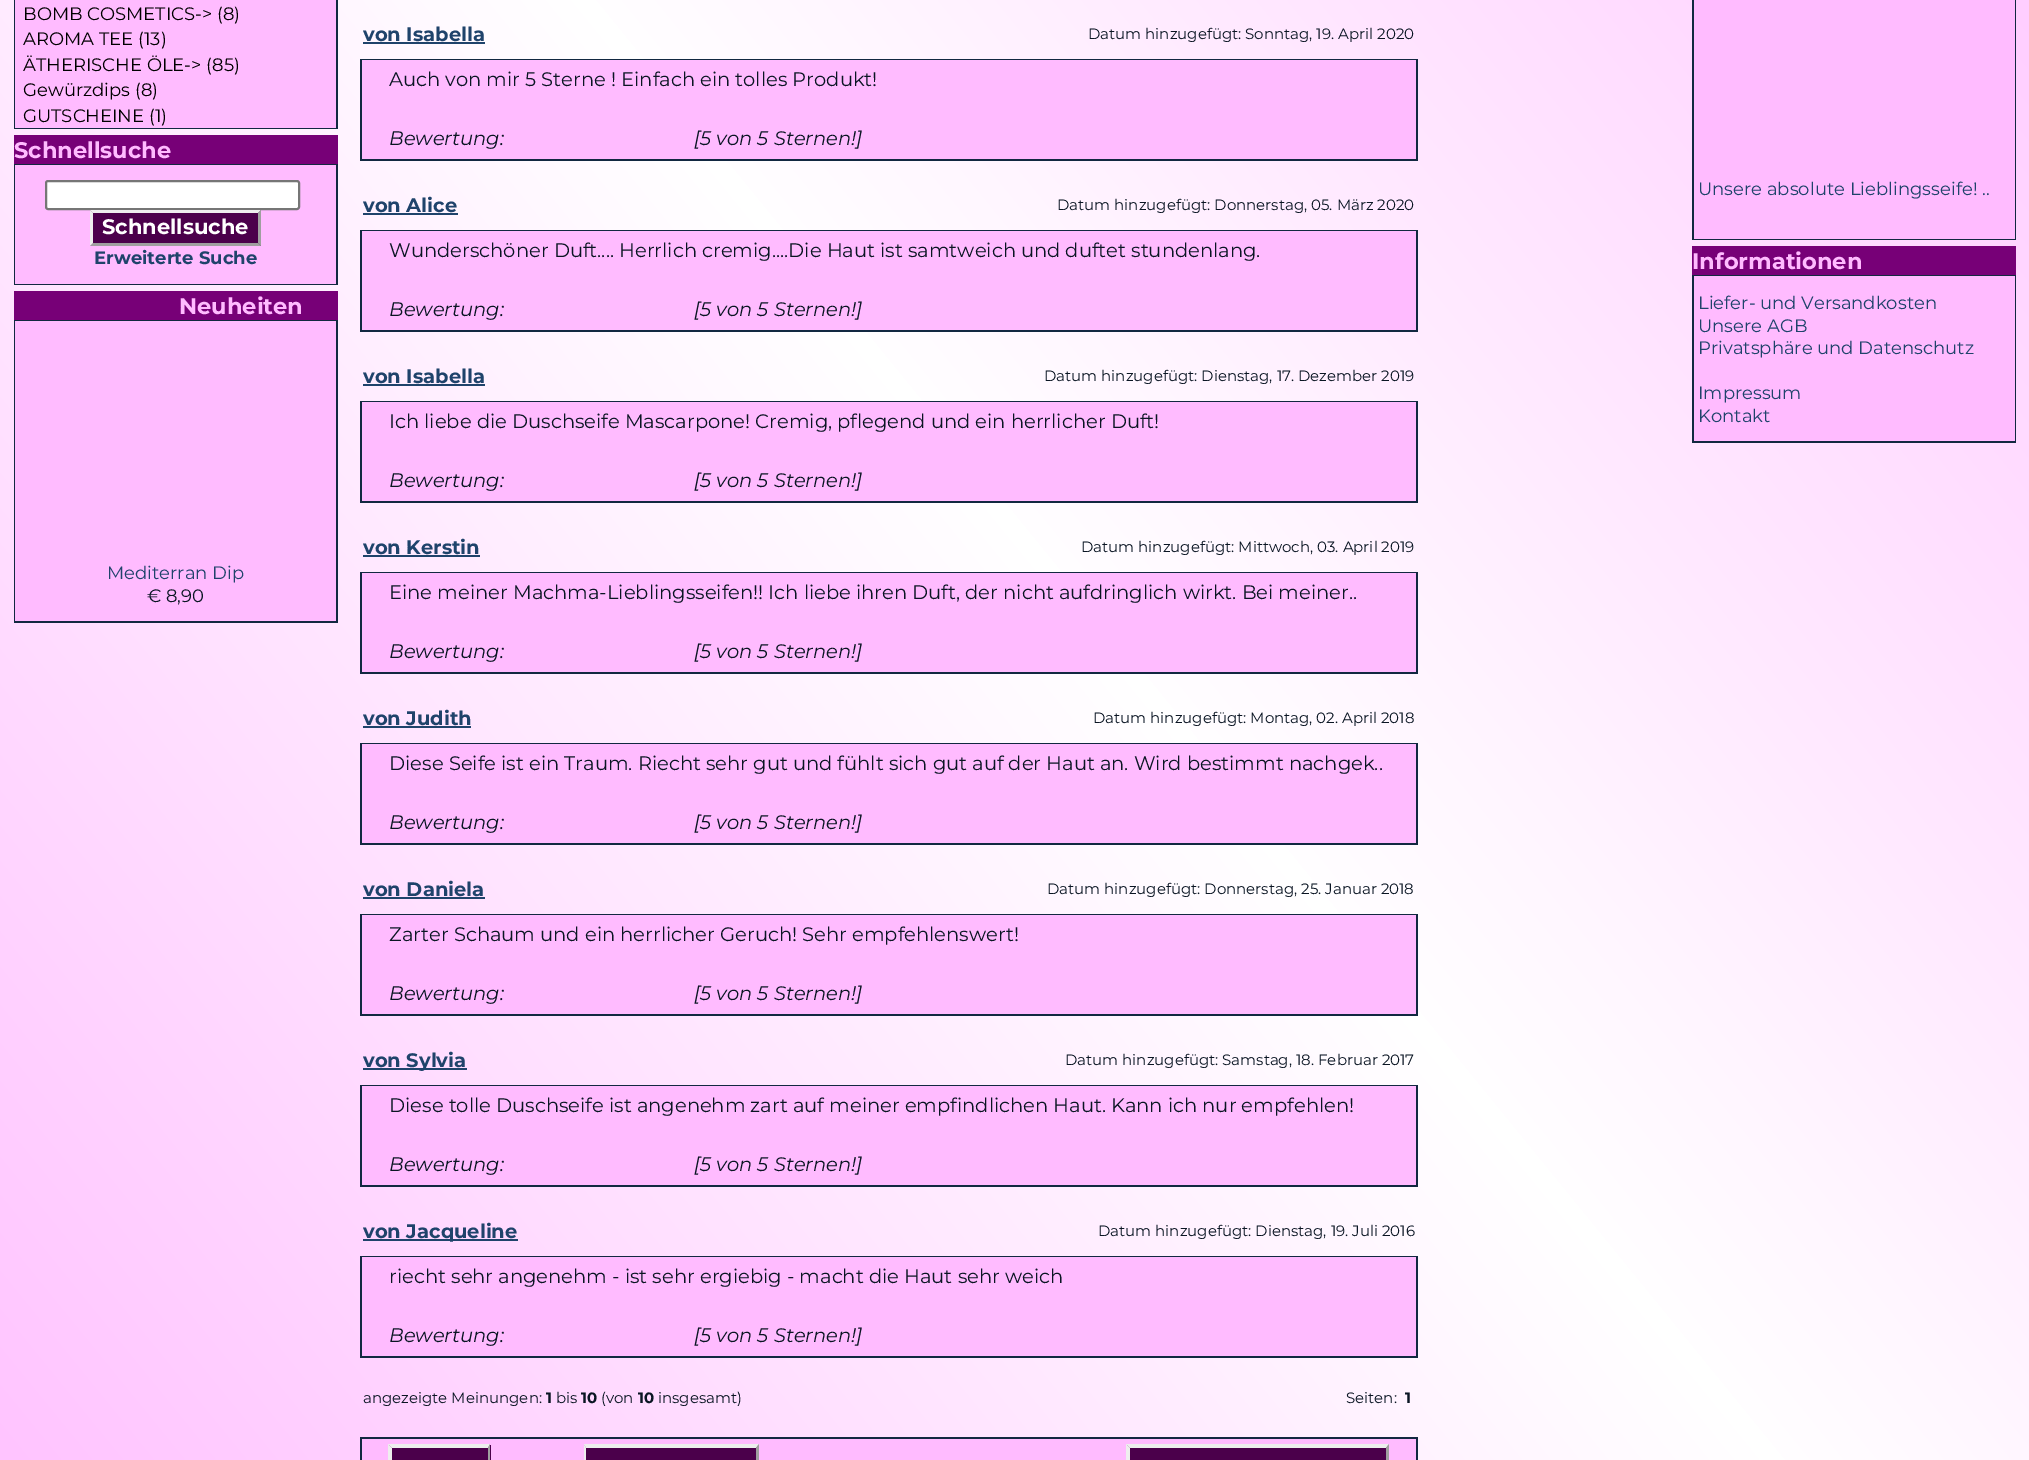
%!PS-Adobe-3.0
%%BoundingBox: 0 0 2029 1460
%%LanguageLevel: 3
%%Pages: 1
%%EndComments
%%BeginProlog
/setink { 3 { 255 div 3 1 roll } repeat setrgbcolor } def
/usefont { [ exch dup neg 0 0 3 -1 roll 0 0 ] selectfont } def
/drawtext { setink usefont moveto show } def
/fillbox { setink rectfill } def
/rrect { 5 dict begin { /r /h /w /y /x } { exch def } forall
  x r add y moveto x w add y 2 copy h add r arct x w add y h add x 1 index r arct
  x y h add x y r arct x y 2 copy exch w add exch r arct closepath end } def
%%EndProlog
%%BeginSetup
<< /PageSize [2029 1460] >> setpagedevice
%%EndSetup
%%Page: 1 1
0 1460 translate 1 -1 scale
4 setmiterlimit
0 0 2029 1460 255 255 255 fillbox
gsave 0 0 moveto 2029 0 lineto 2029 1460 lineto 0 1460 lineto closepath clip newpath
<< /ShadingType 2 /ColorSpace /DeviceRGB /Coords [-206 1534 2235 -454] /Extend [true true] /Function << /FunctionType 3 /Domain [0 1] /Functions [<< /FunctionType 2 /Domain [0 1] /C0 [1 0.733 1] /C1 [1 1 1] /N 1 >> << /FunctionType 2 /Domain [0 1] /C0 [1 1 1] /C1 [1 0.733 1] /N 1 >>] /Bounds [0.5] /Encode [0 1 0 1] >> >> shfill grestore
14 0 324 129 18 40 65 fillbox
15 0 321 128 255 187 255 fillbox
(BOMB COSMETICS-> \(8\)) 23 20 /Montserrat-Regular 18 0 0 0 drawtext
(AROMA TEE \(13\)) 23 45 /Montserrat-Regular 18 0 0 0 drawtext
(ÄTHERISCHE ÖLE-> \(85\)) 23 71 /Montserrat-Regular 18 0 0 0 drawtext
(Gewürzdips \(8\)) 23 96 /Montserrat-Regular 18 0 0 0 drawtext
(GUTSCHEINE \(1\)) 23 122 /Montserrat-Regular 18 0 0 0 drawtext
14 135 324 29 119 0 119 fillbox
(Schnellsuche) 14 158 /Montserrat-Bold 22.5 255 187 255 drawtext
14 164 324 121 18 40 65 fillbox
15 165 321 119 255 187 255 fillbox
255 255 255 setink
46 181 253 28 2 rrect gsave fill grestore
118 118 118 setink
2 setlinewidth
stroke
90 210 171 36 75 0 75 fillbox
238 238 238 setink
90 210 moveto 261 210 lineto 258 213 lineto 93 213 lineto closepath fill
159 159 159 setink
261 210 moveto 261 246 lineto 258 243 lineto 258 213 lineto closepath fill
261 246 moveto 90 246 lineto 93 243 lineto 258 243 lineto closepath fill
238 238 238 setink
90 246 moveto 90 210 lineto 93 213 lineto 93 243 lineto closepath fill
(Schnellsuche) 102 234 /Montserrat-Bold 21 255 255 255 drawtext
(Erweiterte Suche) 94 264 /Montserrat-Bold 18 31 67 107 drawtext
14 291 324 29 119 0 119 fillbox
(Neuheiten) 179 314 /Montserrat-Bold 22.5 255 187 255 drawtext
14 320 324 303 18 40 65 fillbox
15 321 321 300 255 187 255 fillbox
(Mediterran Dip) 107 579 /Montserrat-Regular 18 31 67 107 drawtext
(€ 8,90) 147 602 /Montserrat-Regular 18 10 21 35 drawtext
(von Isabella) 363 41 /Montserrat-Bold 19.5 31 67 107 drawtext
363 42 122 2 31 67 107 fillbox
(Datum hinzugefügt: Sonntag, 19. April 2020) 1088 39 /Montserrat-Regular 15 10 21 35 drawtext
360 59 1058 102 18 40 65 fillbox
362 60 1054 99 255 187 255 fillbox
(Auch von mir 5 Sterne ! Einfach ein tolles Produkt!) 389 86 /Montserrat-Regular 19.5 10 21 35 drawtext
(Bewertung:) 389 145 /Montserrat-Italic 19.5 10 21 35 drawtext
([5 von 5 Sternen!]) 694 145 /Montserrat-Italic 19.5 10 21 35 drawtext
(von Alice) 363 212 /Montserrat-Bold 19.5 31 67 107 drawtext
363 213 95 2 31 67 107 fillbox
(Datum hinzugefügt: Donnerstag, 05. März 2020) 1057 210 /Montserrat-Regular 15 10 21 35 drawtext
360 230 1058 102 18 40 65 fillbox
362 231 1054 99 255 187 255 fillbox
(Wunderschöner Duft.... Herrlich cremig....Die Haut ist samtweich und duftet stundenlang.) 389 257 /Montserrat-Regular 19.5 10 21 35 drawtext
(Bewertung:) 389 316 /Montserrat-Italic 19.5 10 21 35 drawtext
([5 von 5 Sternen!]) 694 316 /Montserrat-Italic 19.5 10 21 35 drawtext
(von Isabella) 363 383 /Montserrat-Bold 19.5 31 67 107 drawtext
363 384 122 2 31 67 107 fillbox
(Datum hinzugefügt: Dienstag, 17. Dezember 2019) 1044 381 /Montserrat-Regular 15 10 21 35 drawtext
360 401 1058 102 18 40 65 fillbox
362 402 1054 99 255 187 255 fillbox
(Ich liebe die Duschseife Mascarpone! Cremig, pflegend und ein herrlicher Duft!) 389 428 /Montserrat-Regular 19.5 10 21 35 drawtext
(Bewertung:) 389 487 /Montserrat-Italic 19.5 10 21 35 drawtext
([5 von 5 Sternen!]) 694 487 /Montserrat-Italic 19.5 10 21 35 drawtext
(von Kerstin) 363 554 /Montserrat-Bold 19.5 31 67 107 drawtext
363 555 117 2 31 67 107 fillbox
(Datum hinzugefügt: Mittwoch, 03. April 2019) 1081 552 /Montserrat-Regular 15 10 21 35 drawtext
360 572 1058 102 18 40 65 fillbox
362 573 1054 99 255 187 255 fillbox
(Eine meiner Machma-Lieblingsseifen!! Ich liebe ihren Duft, der nicht aufdringlich wirkt. Bei meiner..) 389 599 /Montserrat-Regular 19.5 10 21 35 drawtext
(Bewertung:) 389 658 /Montserrat-Italic 19.5 10 21 35 drawtext
([5 von 5 Sternen!]) 694 658 /Montserrat-Italic 19.5 10 21 35 drawtext
(von Judith) 363 725 /Montserrat-Bold 19.5 31 67 107 drawtext
363 726 108 2 31 67 107 fillbox
(Datum hinzugefügt: Montag, 02. April 2018) 1093 723 /Montserrat-Regular 15 10 21 35 drawtext
360 743 1058 102 18 40 65 fillbox
362 744 1054 99 255 187 255 fillbox
(Diese Seife ist ein Traum. Riecht sehr gut und fühlt sich gut auf der Haut an. Wird bestimmt nachgek..) 389 770 /Montserrat-Regular 19.5 10 21 35 drawtext
(Bewertung:) 389 829 /Montserrat-Italic 19.5 10 21 35 drawtext
([5 von 5 Sternen!]) 694 829 /Montserrat-Italic 19.5 10 21 35 drawtext
(von Daniela) 363 896 /Montserrat-Bold 19.5 31 67 107 drawtext
363 897 122 2 31 67 107 fillbox
(Datum hinzugefügt: Donnerstag, 25. Januar 2018) 1047 894 /Montserrat-Regular 15 10 21 35 drawtext
360 914 1058 102 18 40 65 fillbox
362 915 1054 99 255 187 255 fillbox
(Zarter Schaum und ein herrlicher Geruch! Sehr empfehlenswert!) 389 941 /Montserrat-Regular 19.5 10 21 35 drawtext
(Bewertung:) 389 1000 /Montserrat-Italic 19.5 10 21 35 drawtext
([5 von 5 Sternen!]) 694 1000 /Montserrat-Italic 19.5 10 21 35 drawtext
363 1068 104 2 31 67 107 fillbox
(von Sylvia) 363 1067 /Montserrat-Bold 19.5 31 67 107 drawtext
(Datum hinzugefügt: Samstag, 18. Februar 2017) 1065 1065 /Montserrat-Regular 15 10 21 35 drawtext
360 1085 1058 102 18 40 65 fillbox
362 1086 1054 99 255 187 255 fillbox
(Diese tolle Duschseife ist angenehm zart auf meiner empfindlichen Haut. Kann ich nur empfehlen!) 389 1112 /Montserrat-Regular 19.5 10 21 35 drawtext
(Bewertung:) 389 1171 /Montserrat-Italic 19.5 10 21 35 drawtext
([5 von 5 Sternen!]) 694 1171 /Montserrat-Italic 19.5 10 21 35 drawtext
363 1239 155 2 31 67 107 fillbox
(von Jacqueline) 363 1238 /Montserrat-Bold 19.5 31 67 107 drawtext
(Datum hinzugefügt: Dienstag, 19. Juli 2016) 1098 1236 /Montserrat-Regular 15 10 21 35 drawtext
360 1256 1058 102 18 40 65 fillbox
362 1257 1054 99 255 187 255 fillbox
(riecht sehr angenehm - ist sehr ergiebig - macht die Haut sehr weich) 389 1283 /Montserrat-Regular 19.5 10 21 35 drawtext
(Bewertung:) 389 1342 /Montserrat-Italic 19.5 10 21 35 drawtext
([5 von 5 Sternen!]) 694 1342 /Montserrat-Italic 19.5 10 21 35 drawtext
(angezeigte Meinungen:) 363 1403 /Montserrat-Regular 15 10 21 35 drawtext
(1) 546 1403 /Montserrat-Bold 15 10 21 35 drawtext
(bis) 556 1403 /Montserrat-Regular 15 10 21 35 drawtext
(10) 581 1403 /Montserrat-Bold 15 10 21 35 drawtext
(\(von) 601 1403 /Montserrat-Regular 15 10 21 35 drawtext
(10) 638 1403 /Montserrat-Bold 15 10 21 35 drawtext
(insgesamt\)) 658 1403 /Montserrat-Regular 15 10 21 35 drawtext
(Seiten:) 1346 1403 /Montserrat-Regular 15 10 21 35 drawtext
(1) 1405 1403 /Montserrat-Bold 15 10 21 35 drawtext
360 1437 1058 23 18 40 65 fillbox
362 1439 1054 21 255 187 255 fillbox
389 1445 102 15 75 0 75 fillbox
238 238 238 setink
388 1444 moveto 490 1444 lineto 488 1448 lineto 392 1448 lineto closepath fill
159 159 159 setink
490 1444 moveto 490 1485 lineto 488 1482 lineto 488 1448 lineto closepath fill
238 238 238 setink
388 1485 moveto 388 1444 lineto 392 1448 lineto 392 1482 lineto closepath fill
584 1445 175 15 75 0 75 fillbox
238 238 238 setink
584 1444 moveto 759 1444 lineto 756 1448 lineto 586 1448 lineto closepath fill
159 159 159 setink
759 1444 moveto 759 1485 lineto 756 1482 lineto 756 1448 lineto closepath fill
238 238 238 setink
584 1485 moveto 584 1444 lineto 586 1448 lineto 586 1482 lineto closepath fill
1127 1445 262 15 75 0 75 fillbox
238 238 238 setink
1126 1444 moveto 1389 1444 lineto 1386 1448 lineto 1130 1448 lineto closepath fill
159 159 159 setink
1389 1444 moveto 1389 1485 lineto 1386 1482 lineto 1386 1448 lineto closepath fill
238 238 238 setink
1126 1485 moveto 1126 1444 lineto 1130 1448 lineto 1130 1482 lineto closepath fill
1692 0 324 240 18 40 65 fillbox
1694 0 321 239 255 187 255 fillbox
(Unsere absolute Lieblingsseife! ..) 1698 195 /Montserrat-Regular 18 31 67 107 drawtext
1692 246 324 29 119 0 119 fillbox
(Informationen) 1692 269 /Montserrat-Bold 22.5 255 187 255 drawtext
1692 275 324 168 18 40 65 fillbox
1694 276 321 165 255 187 255 fillbox
(Liefer- und Versandkosten) 1698 309 /Montserrat-Regular 18 31 67 107 drawtext
(Unsere AGB) 1698 332 /Montserrat-Regular 18 31 67 107 drawtext
(Privatsphäre und Datenschutz) 1698 354 /Montserrat-Regular 18 31 67 107 drawtext
(Impressum) 1698 399 /Montserrat-Regular 18 31 67 107 drawtext
(Kontakt) 1698 422 /Montserrat-Regular 18 31 67 107 drawtext
showpage
%%EOF
